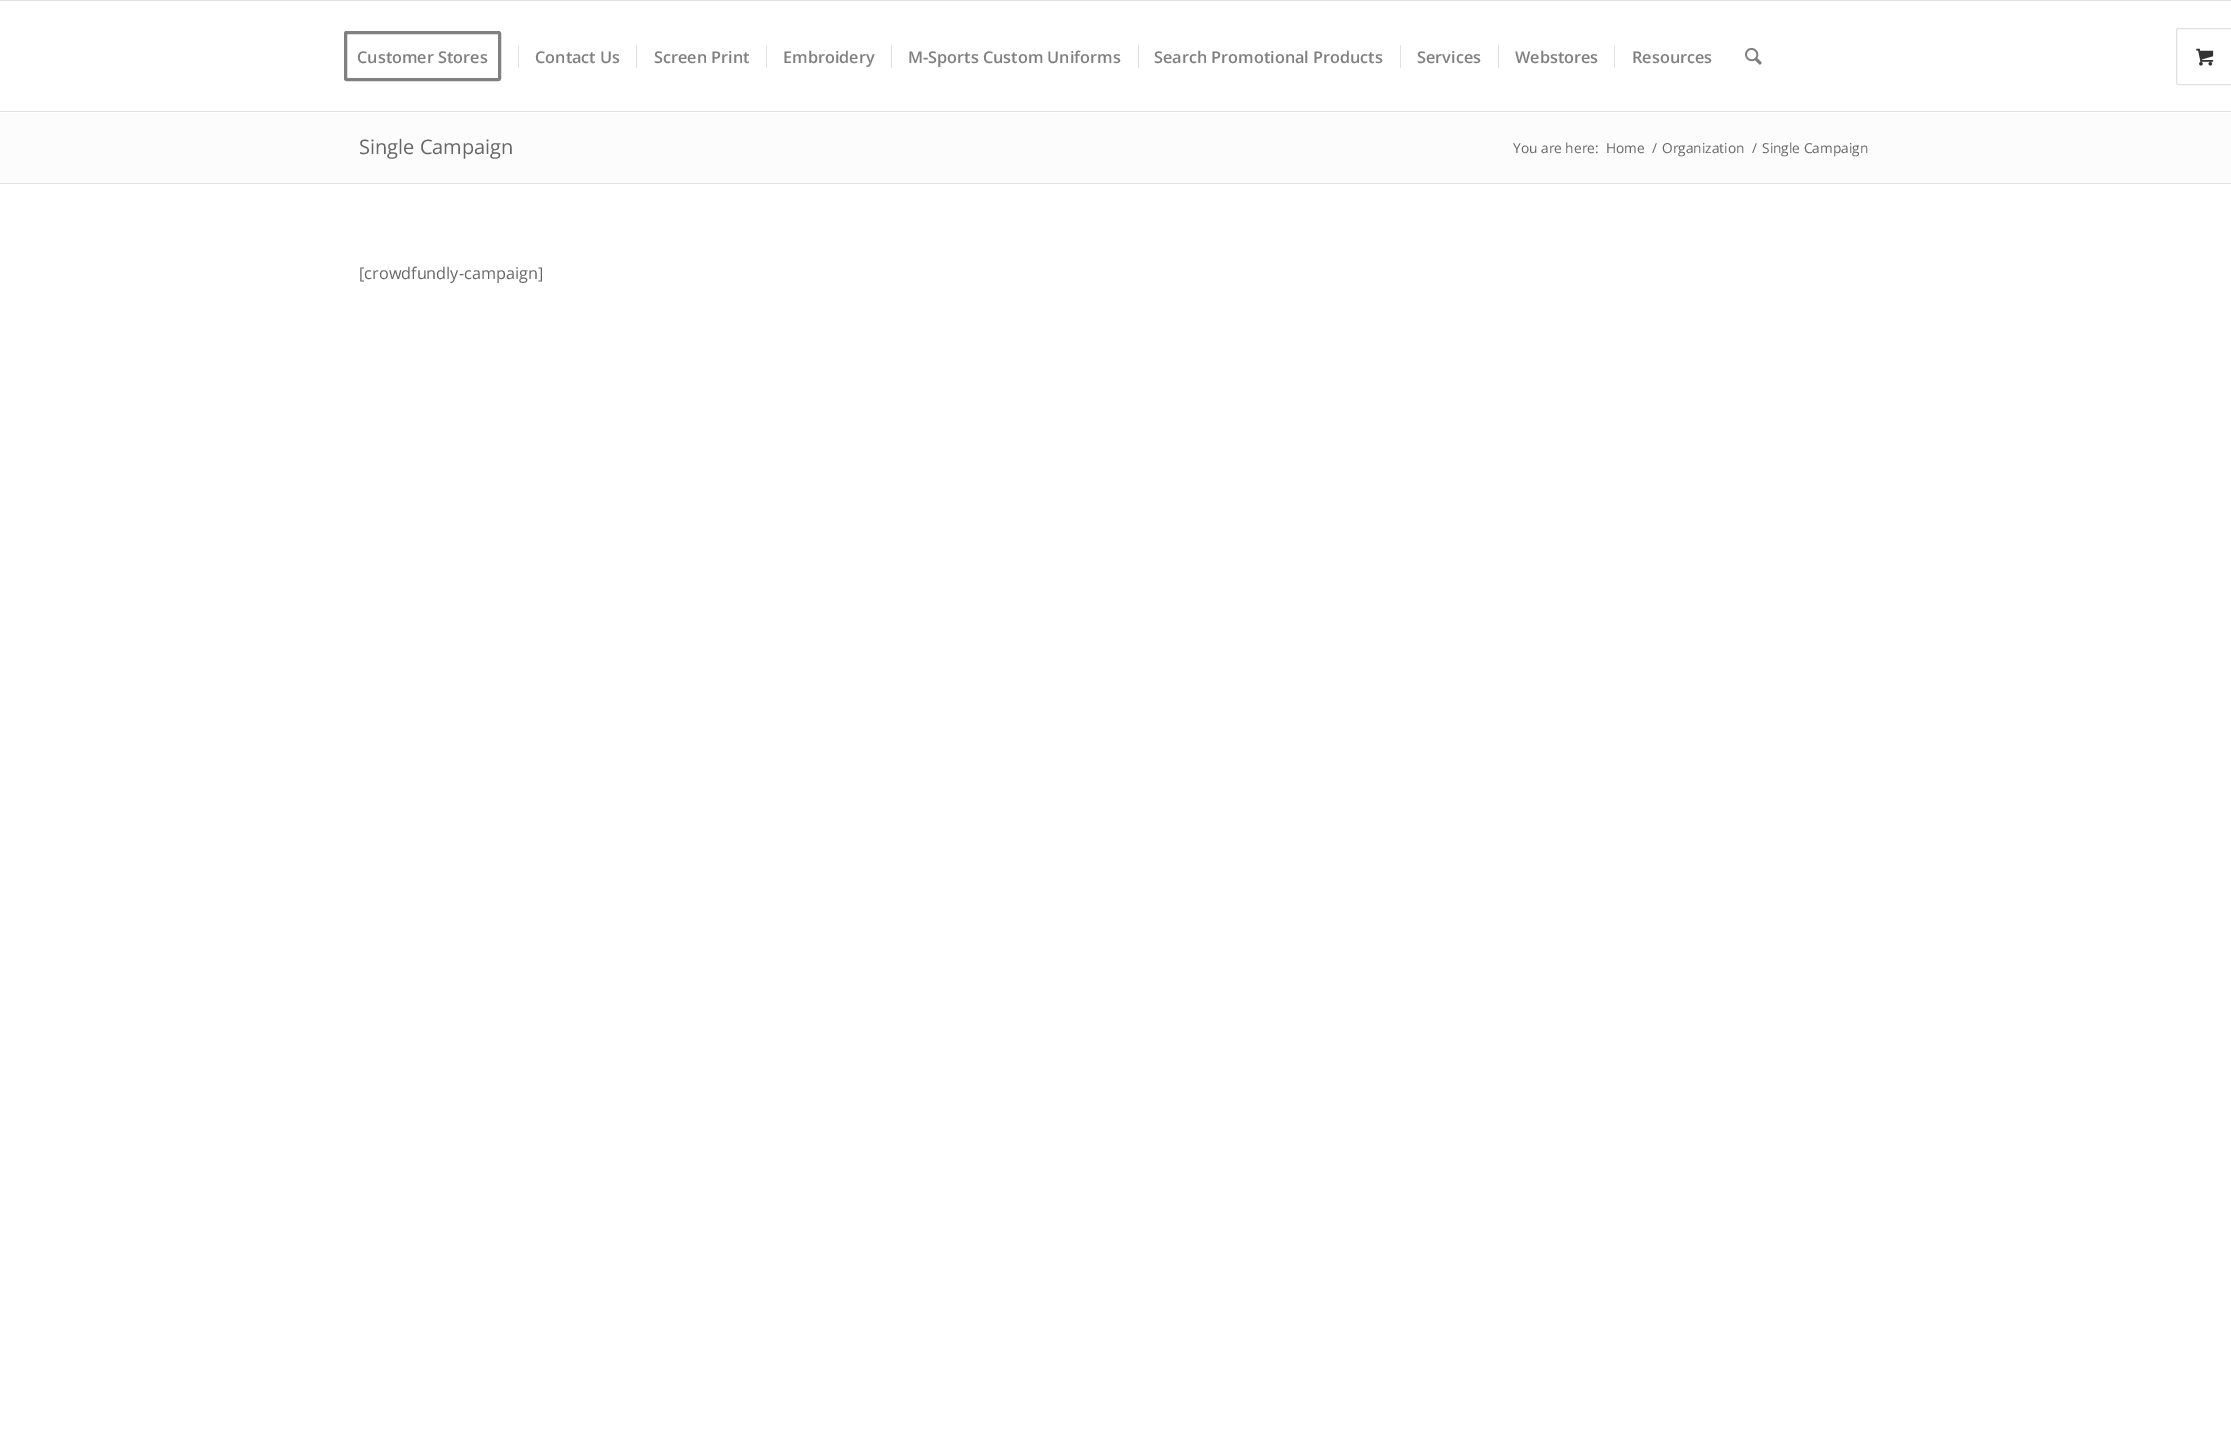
%!PS-Adobe-3.0
%%BoundingBox: 0 0 2231 1454
%%LanguageLevel: 3
%%Pages: 1
%%EndComments
%%BeginProlog
/setink { 3 { 255 div 3 1 roll } repeat setrgbcolor } def
/usefont { [ exch dup neg 0 0 3 -1 roll 0 0 ] selectfont } def
/drawtext { setink usefont moveto show } def
/fillbox { setink rectfill } def
/rrect { 5 dict begin { /r /h /w /y /x } { exch def } forall
  x r add y moveto x w add y 2 copy h add r arct x w add y h add x 1 index r arct
  x y h add x y r arct x y 2 copy exch w add exch r arct closepath end } def
/drawimage { 5 dict begin { /h /w /y /x /name } { exch def } forall
  gsave x y translate w h scale
  w h 8 [w 0 0 h 0 0] name (r) file false 3 colorimage grestore end } def
%%EndProlog
%%BeginSetup
<< /PageSize [2231 1454] >> setpagedevice
%%EndSetup
%%Page: 1 1
0 1454 translate 1 -1 scale
4 setmiterlimit
0 0 2231 1454 255 255 255 fillbox
0 0 2231 1 225 225 225 fillbox
0 111 2231 1 225 225 225 fillbox
128 128 128 setink
3 setlinewidth
345.5 32.5 154 47 1 rrect stroke
(Customer Stores) 357 63 /OpenSans-SemiBold 16.25 128 128 128 drawtext
(Contact Us) 535 63 /OpenSans-SemiBold 16.25 128 128 128 drawtext
518 45 1 23 225 225 225 fillbox
(Screen Print) 654 63 /OpenSans-SemiBold 16.25 128 128 128 drawtext
636 45 1 23 225 225 225 fillbox
(Embroidery) 783 63 /OpenSans-SemiBold 16.25 128 128 128 drawtext
766 45 1 23 225 225 225 fillbox
(M-Sports Custom Uniforms) 908 63 /OpenSans-SemiBold 16.25 128 128 128 drawtext
891 45 1 23 225 225 225 fillbox
(Search Promotional Products) 1154 63 /OpenSans-SemiBold 16.25 128 128 128 drawtext
1138 45 1 23 225 225 225 fillbox
(Services) 1417 63 /OpenSans-SemiBold 16.25 128 128 128 drawtext
1400 45 1 23 225 225 225 fillbox
(Webstores) 1515 63 /OpenSans-SemiBold 16.25 128 128 128 drawtext
1498 45 1 23 225 225 225 fillbox
(Resources) 1632 63 /OpenSans-SemiBold 16.25 128 128 128 drawtext
1614 45 1 23 225 225 225 fillbox
(assets/img1.rgb) 1745 47 17 18 drawimage
1 setlinewidth
2176.5 28.5 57 56 2 rrect stroke
(assets/img2.rgb) 2196 48 18 18 drawimage
0 113 2231 70 252 252 252 fillbox
(Single Campaign) 359 154 /OpenSans-Regular 20 102 102 102 drawtext
(You are here:) 1513 153 /OpenSans-Regular 13.75 102 102 102 drawtext
(Home) 1606 153 /OpenSans-Regular 13.75 102 102 102 drawtext
(/) 1652 153 /OpenSans-Regular 13.75 102 102 102 drawtext
(Organization) 1662 153 /OpenSans-Regular 13.75 102 102 102 drawtext
(/) 1752 153 /OpenSans-Regular 13.75 102 102 102 drawtext
(Single Campaign) 1762 153 /OpenSans-Regular 13.75 102 102 102 drawtext
0 183 2231 1 225 225 225 fillbox
([crowdfundly-campaign]) 359 279 /OpenSans-Regular 16.25 102 102 102 drawtext
showpage
%%EOF
